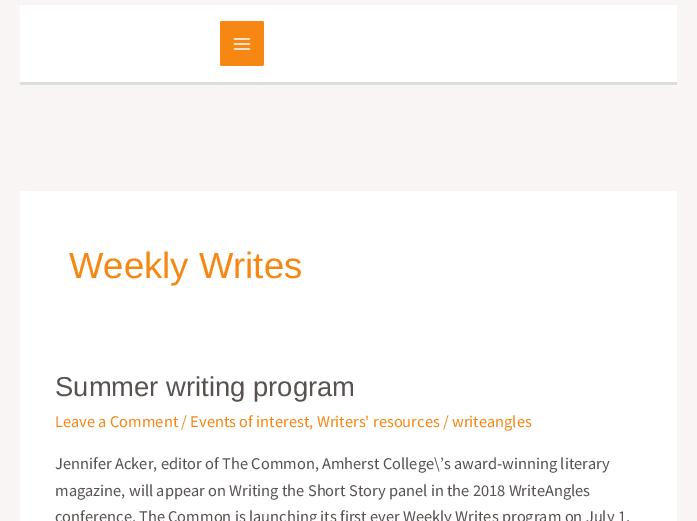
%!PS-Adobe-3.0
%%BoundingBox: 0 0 697 521
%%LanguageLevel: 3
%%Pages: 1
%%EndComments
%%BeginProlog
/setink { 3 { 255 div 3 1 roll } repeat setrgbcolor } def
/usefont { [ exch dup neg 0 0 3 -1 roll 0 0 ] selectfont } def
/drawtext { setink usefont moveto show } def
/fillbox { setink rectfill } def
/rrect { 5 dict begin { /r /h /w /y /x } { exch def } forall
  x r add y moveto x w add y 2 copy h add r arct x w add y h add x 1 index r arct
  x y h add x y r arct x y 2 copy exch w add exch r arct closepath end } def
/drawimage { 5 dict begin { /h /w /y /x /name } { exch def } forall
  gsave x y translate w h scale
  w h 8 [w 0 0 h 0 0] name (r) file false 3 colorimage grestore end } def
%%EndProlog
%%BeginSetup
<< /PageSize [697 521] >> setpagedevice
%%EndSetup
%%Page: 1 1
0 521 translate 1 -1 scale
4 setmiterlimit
0 0 697 521 248 245 244 fillbox
20 5 657 77 255 255 255 fillbox
20 82 657 3 221 221 221 fillbox
246 135 18 setink
220 21 44 45 2 rrect fill
(assets/img1.rgb) 233 38 18 12 drawimage
20 191 657 330 255 255 255 fillbox
(Weekly Writes) 69 278 /LiberationSans-Regular 36.5 246 135 18 drawtext
(Summer writing program) 55 396 /LiberationSans-Regular 27.4 87 82 80 drawtext
(Leave a Comment / Events of interest, Writers' resources / writeangles) 55 427 /SourceSansPro-Regular 16.4 246 135 18 drawtext
(Jennifer Acker, editor of The Common, Amherst College\\’s award-winning literary) 55 469 /SourceSansPro-Regular 16.4 87 82 80 drawtext
(magazine, will appear on Writing the Short Story panel in the 2018 WriteAngles) 55 496 /SourceSansPro-Regular 16.4 87 82 80 drawtext
(conference. The Common is launching its first ever Weekly Writes program on July 1,) 55 522 /SourceSansPro-Regular 16.4 87 82 80 drawtext
showpage
%%EOF
